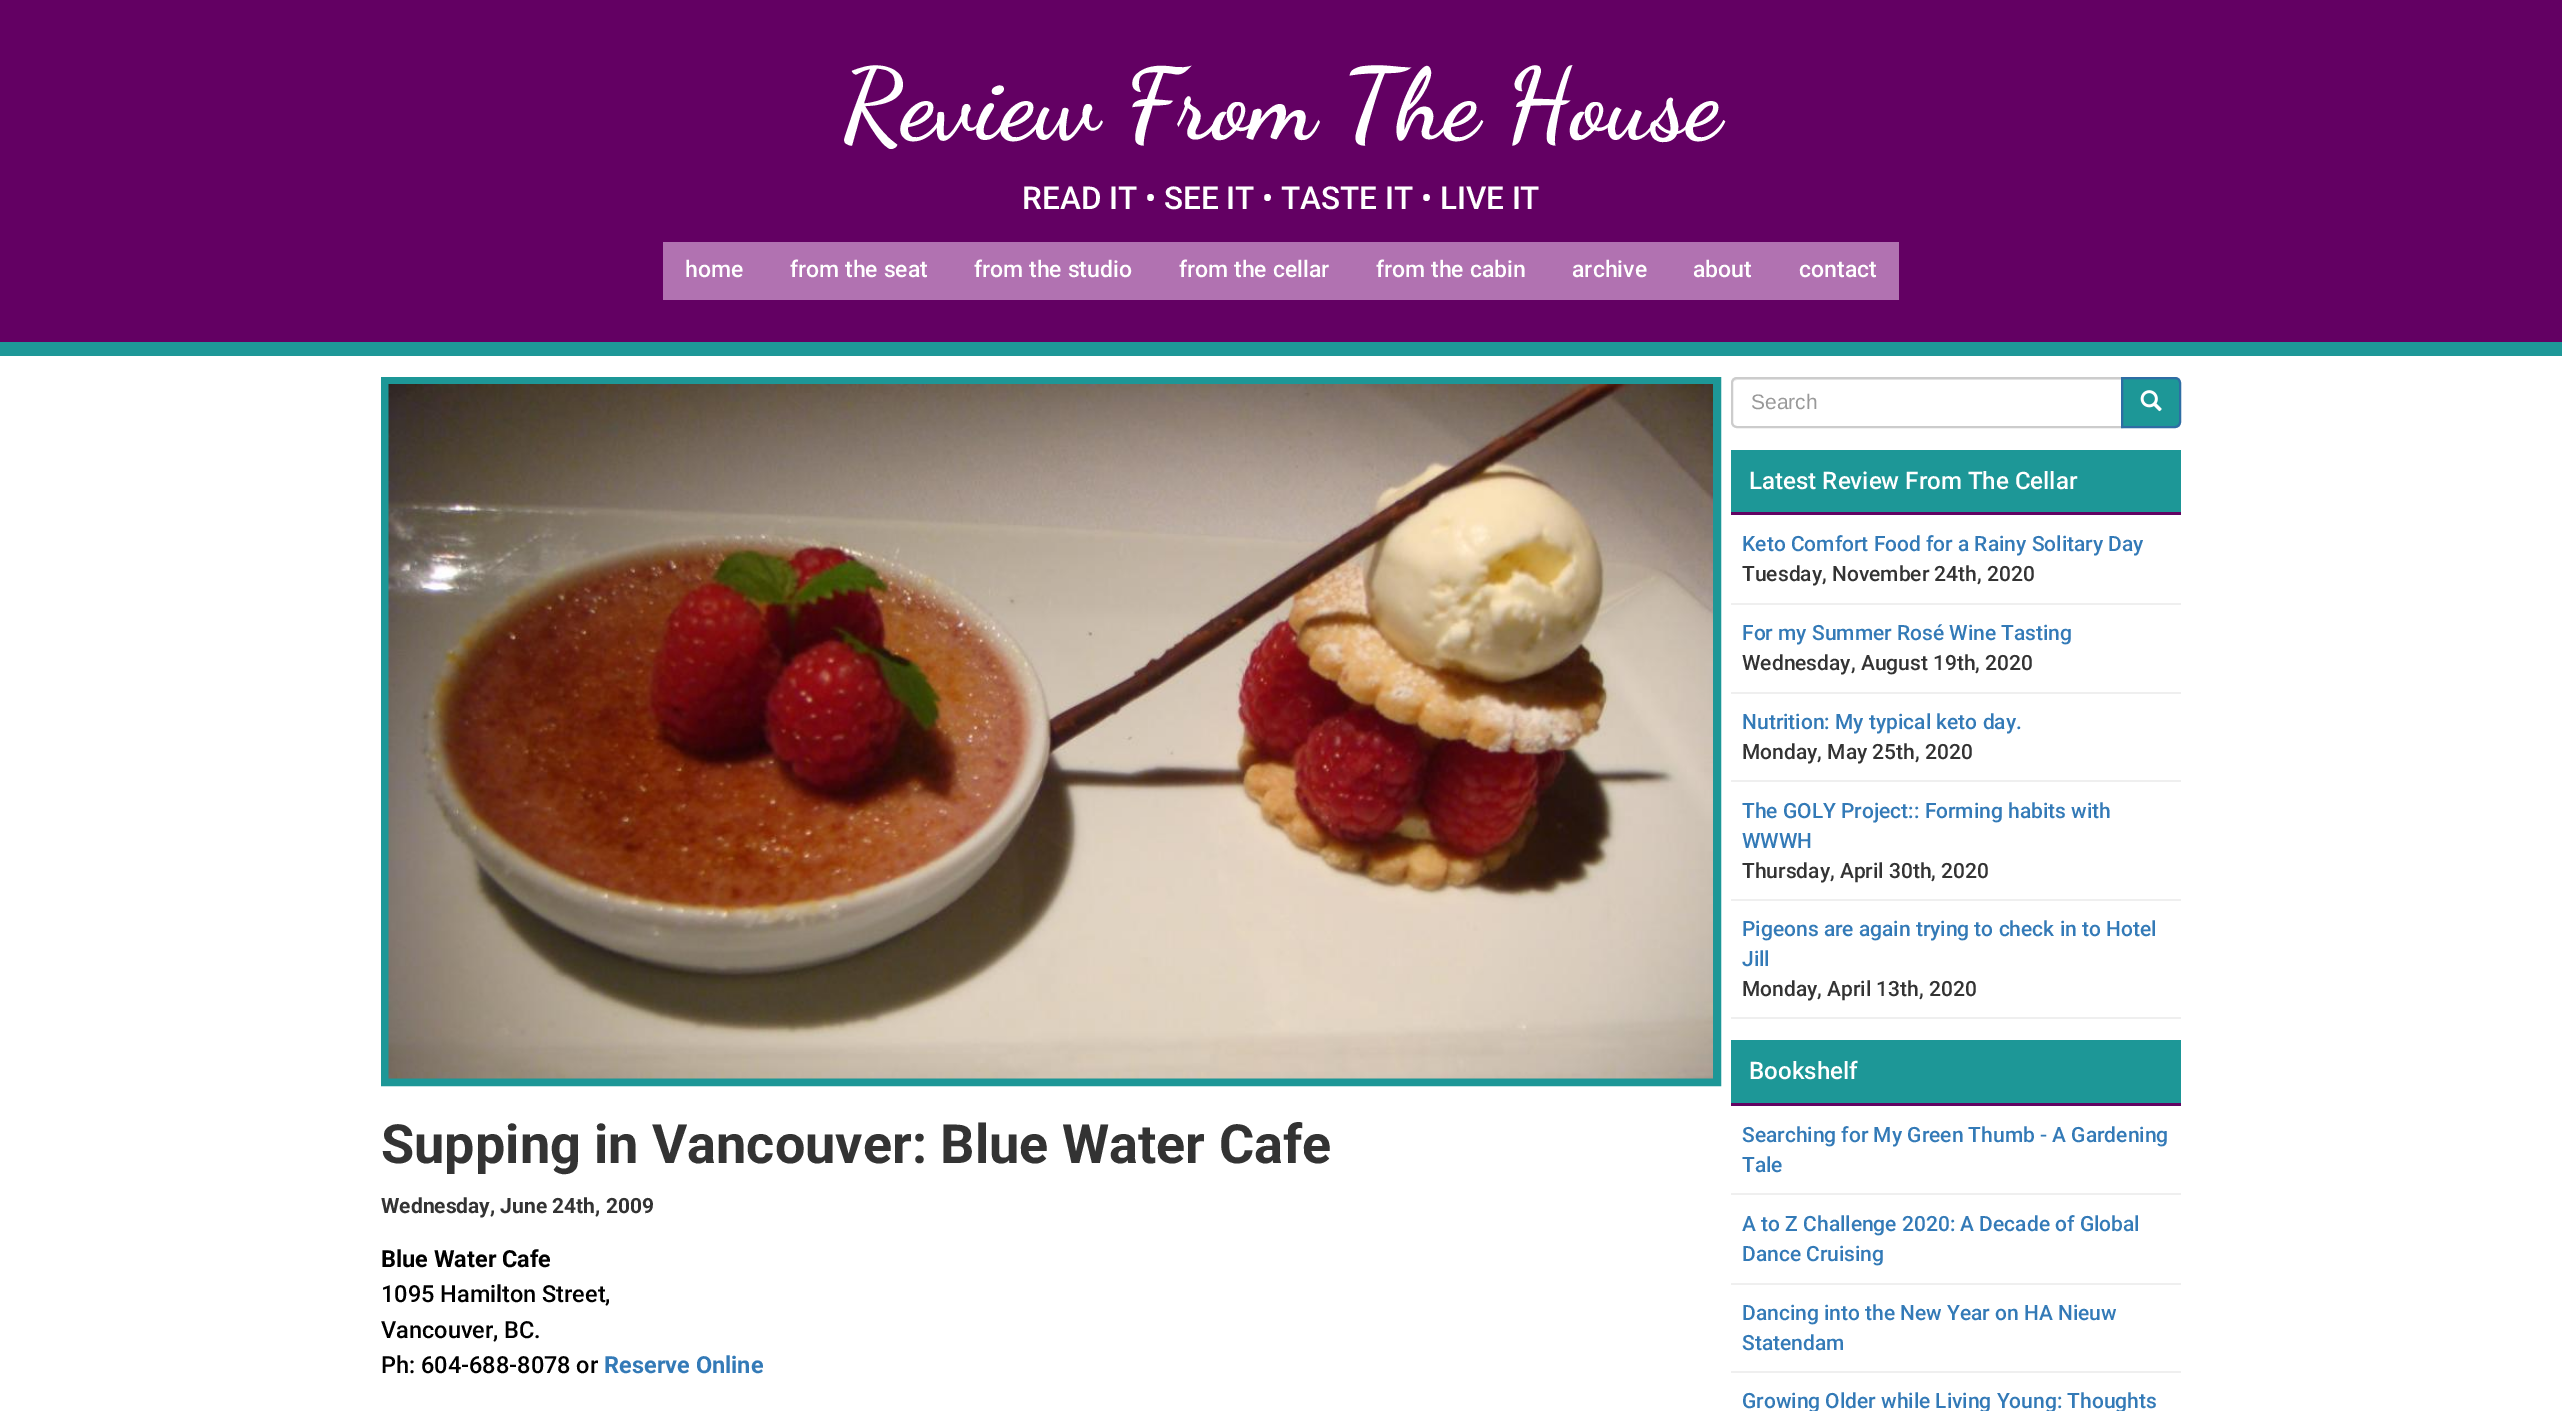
%!PS-Adobe-3.0
%%BoundingBox: 0 0 2562 1411
%%LanguageLevel: 3
%%Pages: 1
%%EndComments
%%BeginProlog
/setink { 3 { 255 div 3 1 roll } repeat setrgbcolor } def
/usefont { [ exch dup neg 0 0 3 -1 roll 0 0 ] selectfont } def
/drawtext { setink usefont moveto show } def
/fillbox { setink rectfill } def
/drawimage { 5 dict begin { /h /w /y /x /name } { exch def } forall
  gsave x y translate w h scale
  w h 8 [w 0 0 h 0 0] name (r) file false 3 colorimage grestore end } def
%%EndProlog
%%BeginSetup
<< /PageSize [2562 1411] >> setpagedevice
%%EndSetup
%%Page: 1 1
0 1411 translate 1 -1 scale
4 setmiterlimit
0 0 2562 1411 255 255 255 fillbox
0 0 2562 342 99 0 99 fillbox
0 342 2562 14 30 152 152 fillbox
(Review From The House) 841 137 /DancingScript-Bold 99.75 255 255 255 drawtext
(READ IT • SEE IT • TASTE IT • LIVE IT) 1022 209 /Roboto-Medium 31.5 255 255 255 drawtext
663 242 1236 58 177 114 177 fillbox
(home) 685 277 /Roboto-Medium 23 255 255 255 drawtext
(from the seat) 790 277 /Roboto-Medium 23 255 255 255 drawtext
(from the studio) 974 277 /Roboto-Medium 23 255 255 255 drawtext
(from the cellar) 1179 277 /Roboto-Medium 23 255 255 255 drawtext
(from the cabin) 1376 277 /Roboto-Medium 23 255 255 255 drawtext
(archive) 1572 277 /Roboto-Medium 23 255 255 255 drawtext
(about) 1693 277 /Roboto-Medium 23 255 255 255 drawtext
(contact) 1799 277 /Roboto-Medium 23 255 255 255 drawtext
29 151 151 setink
8 setlinewidth
385 381 1332 701 rectstroke
(assets/img1.rgb) 388 384 1325 695 drawimage
(Supping in Vancouver: Blue Water Cafe) 381 1163 /Roboto-Bold 54 51 51 51 drawtext
(Wednesday, June 24th, 2009) 381 1213 /Roboto-Bold 21 51 51 51 drawtext
(Blue Water Cafe) 381 1267 /Roboto-Bold 23.5 0 0 0 drawtext
(1095 Hamilton Street,) 381 1302 /Roboto-Medium 23.5 0 0 0 drawtext
(Vancouver, BC.) 381 1338 /Roboto-Medium 23.5 0 0 0 drawtext
(Ph: 604-688-8078 or) 381 1373 /Roboto-Medium 23.5 0 0 0 drawtext
(Reserve Online) 604 1373 /Roboto-Bold 23.5 51 122 183 drawtext
236 236 236 setink
1737 380 moveto 2121 380 lineto 2121 378 lineto 1738 378 lineto 1736 378 1734 380 1733 382 curveto 1734 381 1736 380 1737 380 curveto closepath fill
204 204 204 setink
2 setlinewidth
1737 378 moveto 2122 378 lineto 2122 427 lineto 1737 427 lineto 1734 427 1732 425 1732 422 curveto 1732 383 lineto 1732 380 1734 378 1737 378 curveto closepath stroke
(Search) 1751 409 /LiberationSans-Regular 21 153 153 153 drawtext
29 151 151 setink
2122 378 moveto 2175 378 lineto 2178 378 2180 380 2180 383 curveto 2180 422 lineto 2180 425 2178 427 2175 427 curveto 2122 427 lineto closepath gsave fill grestore
46 109 164 setink
stroke
(assets/img2.rgb) 2140 390 22 22 drawimage
1731 450 450 62 29 151 151 fillbox
1731 512 450 3 99 3 98 fillbox
(Latest Review From The Cellar) 1749 489 /Roboto-Medium 24.1 255 255 255 drawtext
1731 603 450 2 239 239 239 fillbox
(Keto Comfort Food for a Rainy Solitary Day) 1742 551 /Roboto-Medium 21 51 122 183 drawtext
(Tuesday, November 24th, 2020) 1742 581 /Roboto-Medium 21 51 51 51 drawtext
1731 692 450 2 239 239 239 fillbox
(For my Summer Rosé Wine Tasting) 1742 640 /Roboto-Medium 21 51 122 183 drawtext
(Wednesday, August 19th, 2020) 1742 670 /Roboto-Medium 21 51 51 51 drawtext
1731 780 450 2 239 239 239 fillbox
(Nutrition: My typical keto day.) 1742 729 /Roboto-Medium 21 51 122 183 drawtext
(Monday, May 25th, 2020) 1742 759 /Roboto-Medium 21 51 51 51 drawtext
1731 899 450 2 239 239 239 fillbox
(The GOLY Project:: Forming habits with) 1742 818 /Roboto-Medium 21 51 122 183 drawtext
(WWWH) 1742 848 /Roboto-Medium 21 51 122 183 drawtext
(Thursday, April 30th, 2020) 1742 878 /Roboto-Medium 21 51 51 51 drawtext
1731 1017 450 2 239 239 239 fillbox
(Pigeons are again trying to check in to Hotel) 1742 936 /Roboto-Medium 21 51 122 183 drawtext
(Jill) 1742 966 /Roboto-Medium 21 51 122 183 drawtext
(Monday, April 13th, 2020) 1742 996 /Roboto-Medium 21 51 51 51 drawtext
1731 1040 450 63 29 151 151 fillbox
1731 1103 450 3 99 3 98 fillbox
(Bookshelf) 1749 1079 /Roboto-Medium 24.1 255 255 255 drawtext
1731 1193 450 2 239 239 239 fillbox
(Searching for My Green Thumb - A Gardening) 1742 1142 /Roboto-Medium 21 51 122 183 drawtext
(Tale) 1742 1172 /Roboto-Medium 21 51 122 183 drawtext
1731 1283 450 2 239 239 239 fillbox
(A to Z Challenge 2020: A Decade of Global) 1742 1231 /Roboto-Medium 21 51 122 183 drawtext
(Dance Cruising) 1742 1261 /Roboto-Medium 21 51 122 183 drawtext
1731 1371 450 2 239 239 239 fillbox
(Dancing into the New Year on HA Nieuw) 1742 1320 /Roboto-Medium 21 51 122 183 drawtext
(Statendam) 1742 1350 /Roboto-Medium 21 51 122 183 drawtext
(Growing Older while Living Young: Thoughts) 1742 1408 /Roboto-Medium 21 51 122 183 drawtext
showpage
%%EOF
